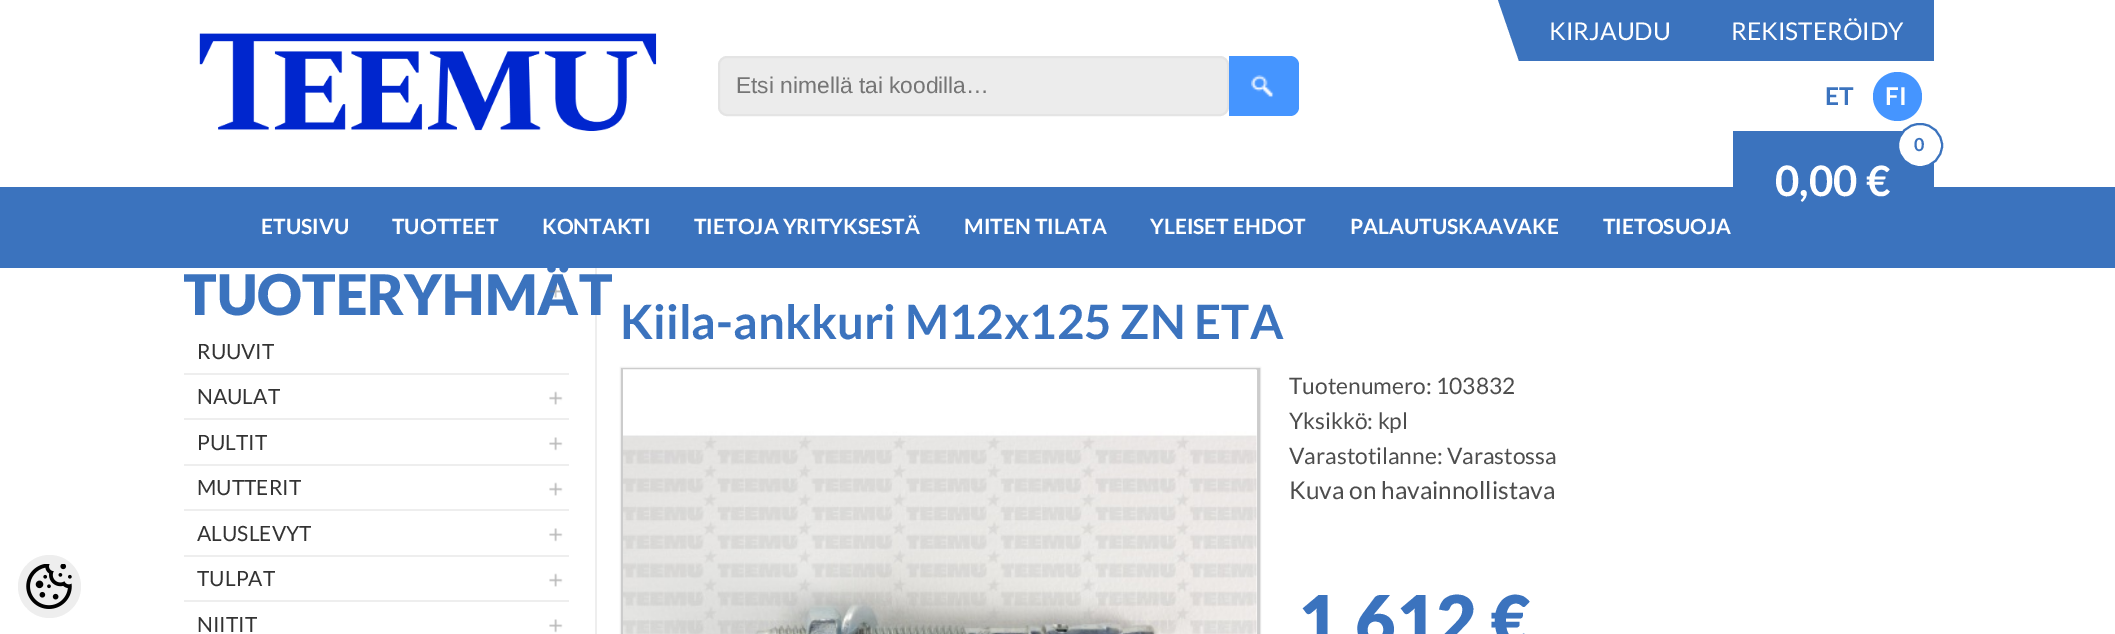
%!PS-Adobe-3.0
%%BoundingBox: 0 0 2115 634
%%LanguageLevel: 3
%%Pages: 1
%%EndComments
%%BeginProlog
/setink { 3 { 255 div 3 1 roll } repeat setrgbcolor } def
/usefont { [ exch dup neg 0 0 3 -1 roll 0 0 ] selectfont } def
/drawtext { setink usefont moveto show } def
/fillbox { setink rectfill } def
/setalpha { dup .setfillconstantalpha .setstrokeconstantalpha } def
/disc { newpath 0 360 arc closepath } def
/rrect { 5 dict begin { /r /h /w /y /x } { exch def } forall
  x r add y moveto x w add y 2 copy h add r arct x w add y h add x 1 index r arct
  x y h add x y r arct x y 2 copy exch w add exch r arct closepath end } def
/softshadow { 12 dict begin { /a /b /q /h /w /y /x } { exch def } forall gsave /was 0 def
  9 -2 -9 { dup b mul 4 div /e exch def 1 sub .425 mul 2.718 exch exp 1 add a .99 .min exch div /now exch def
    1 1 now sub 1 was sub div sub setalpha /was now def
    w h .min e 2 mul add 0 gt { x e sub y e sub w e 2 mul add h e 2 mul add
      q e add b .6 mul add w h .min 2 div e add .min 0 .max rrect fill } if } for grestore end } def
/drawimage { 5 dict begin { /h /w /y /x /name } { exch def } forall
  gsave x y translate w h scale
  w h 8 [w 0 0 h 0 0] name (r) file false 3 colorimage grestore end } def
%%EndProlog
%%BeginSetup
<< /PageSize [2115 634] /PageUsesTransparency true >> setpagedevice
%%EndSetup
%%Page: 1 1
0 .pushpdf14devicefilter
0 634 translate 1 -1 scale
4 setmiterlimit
0 0 2115 634 255 255 255 fillbox
1519 0 415 61 59 115 190 fillbox
1519 0 moveto 1519 61 lineto 1498 0 lineto closepath fill
(KIRJAUDU) 1549 40 /Lato-Regular 24.5 255 255 255 drawtext
(REKISTERÖIDY) 1731 40 /Lato-Regular 24.5 255 255 255 drawtext
(assets/img1.rgb) 199 33 458 98 drawimage
236 236 236 setink
719 57 509 58 8 rrect gsave fill grestore
228 228 228 setink
2 setlinewidth
stroke
(Etsi nimellä tai koodilla…) 736 93 /LiberationSans-Regular 22.75 117 117 117 drawtext
69 149 255 setink
1229 56 moveto 1290 56 lineto 1295 56 1299 60 1299 65 curveto 1299 107 lineto 1299 112 1295 116 1290 116 curveto 1229 116 lineto closepath fill
(assets/img2.rgb) 1251 75 23 23 drawimage
(ET) 1825 105 /Lato-Bold 24.5 59 115 190 drawtext
69 149 255 setink
1897.5 96.5 24.5 disc fill
(FI) 1885 105 /Lato-Bold 24.5 255 255 255 drawtext
1733 131 201 56 59 115 190 fillbox
255 255 255 setink
1898 124 44 43 21.5 rrect gsave fill grestore
59 115 190 setink
stroke
(0) 1914 151 /Lato-Bold 18 59 115 190 drawtext
0 187 2115 81 59 115 190 fillbox
(0,00 €) 1775 196 /Lato-Bold 42 255 255 255 drawtext
(ETUSIVU) 261 234 /Lato-Bold 21 255 255 255 drawtext
(TUOTTEET) 392 234 /Lato-Bold 21 255 255 255 drawtext
(KONTAKTI) 542 234 /Lato-Bold 21 255 255 255 drawtext
(TIETOJA YRITYKSESTÄ) 694 234 /Lato-Bold 21 255 255 255 drawtext
(MITEN TILATA) 964 234 /Lato-Bold 21 255 255 255 drawtext
(YLEISET EHDOT) 1150 234 /Lato-Bold 21 255 255 255 drawtext
(PALAUTUSKAAVAKE) 1350 234 /Lato-Bold 21 255 255 255 drawtext
(TIETOSUOJA) 1603 234 /Lato-Bold 21 255 255 255 drawtext
238 238 238 setink
49.5 586.5 31.5 disc fill
(assets/img3.rgb) 26 564 46 45 drawimage
595 268 2 366 238 238 238 fillbox
gsave
184 268 1750 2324 rectclip
(TUOTERYHMÄT) 183 315 /Lato-Black 56 59 115 190 drawtext
grestore
(assets/img4.rgb) 549 285 14 13 drawimage
(RUUVIT) 197 359 /Lato-Regular 21 51 51 51 drawtext
184 373 385 2 238 238 238 fillbox
(NAULAT) 197 404 /Lato-Regular 21 51 51 51 drawtext
(assets/img5.rgb) 549 391 14 14 drawimage
184 418 385 2 238 238 238 fillbox
(PULTIT) 197 450 /Lato-Regular 21 51 51 51 drawtext
(assets/img6.rgb) 549 437 14 14 drawimage
184 464 385 2 238 238 238 fillbox
(MUTTERIT) 197 495 /Lato-Regular 21 51 51 51 drawtext
(assets/img5.rgb) 549 482 14 14 drawimage
184 509 385 2 238 238 238 fillbox
(ALUSLEVYT) 197 541 /Lato-Regular 21 51 51 51 drawtext
(assets/img6.rgb) 549 528 14 14 drawimage
184 555 385 2 238 238 238 fillbox
(TULPAT) 197 586 /Lato-Regular 21 51 51 51 drawtext
(assets/img5.rgb) 549 573 14 14 drawimage
184 600 385 2 238 238 238 fillbox
(NIITIT) 197 632 /Lato-Regular 21 51 51 51 drawtext
(assets/img6.rgb) 549 619 14 14 drawimage
(Kiila-ankkuri M12x125 ZN ETA) 620 339 /Lato-Bold 47.25 59 115 190 drawtext
204 204 204 setink
621 368 639 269 0 1 1 softshadow
622 369 637 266 rectstroke
(assets/img7.rgb) 623 369 634 265 drawimage
(Tuotenumero: 103832) 1289 394 /Lato-Regular 22.75 77 77 77 drawtext
(Yksikkö: kpl) 1289 429 /Lato-Regular 22.75 77 77 77 drawtext
(Varastotilanne: Varastossa) 1289 464 /Lato-Regular 22.75 77 77 77 drawtext
(Kuva on havainnollistava) 1289 499 /Lato-Regular 24.5 77 77 77 drawtext
(1,612 €) 1298 646 /Lato-Black 70 59 115 190 drawtext
.poppdf14devicefilter showpage
%%EOF
